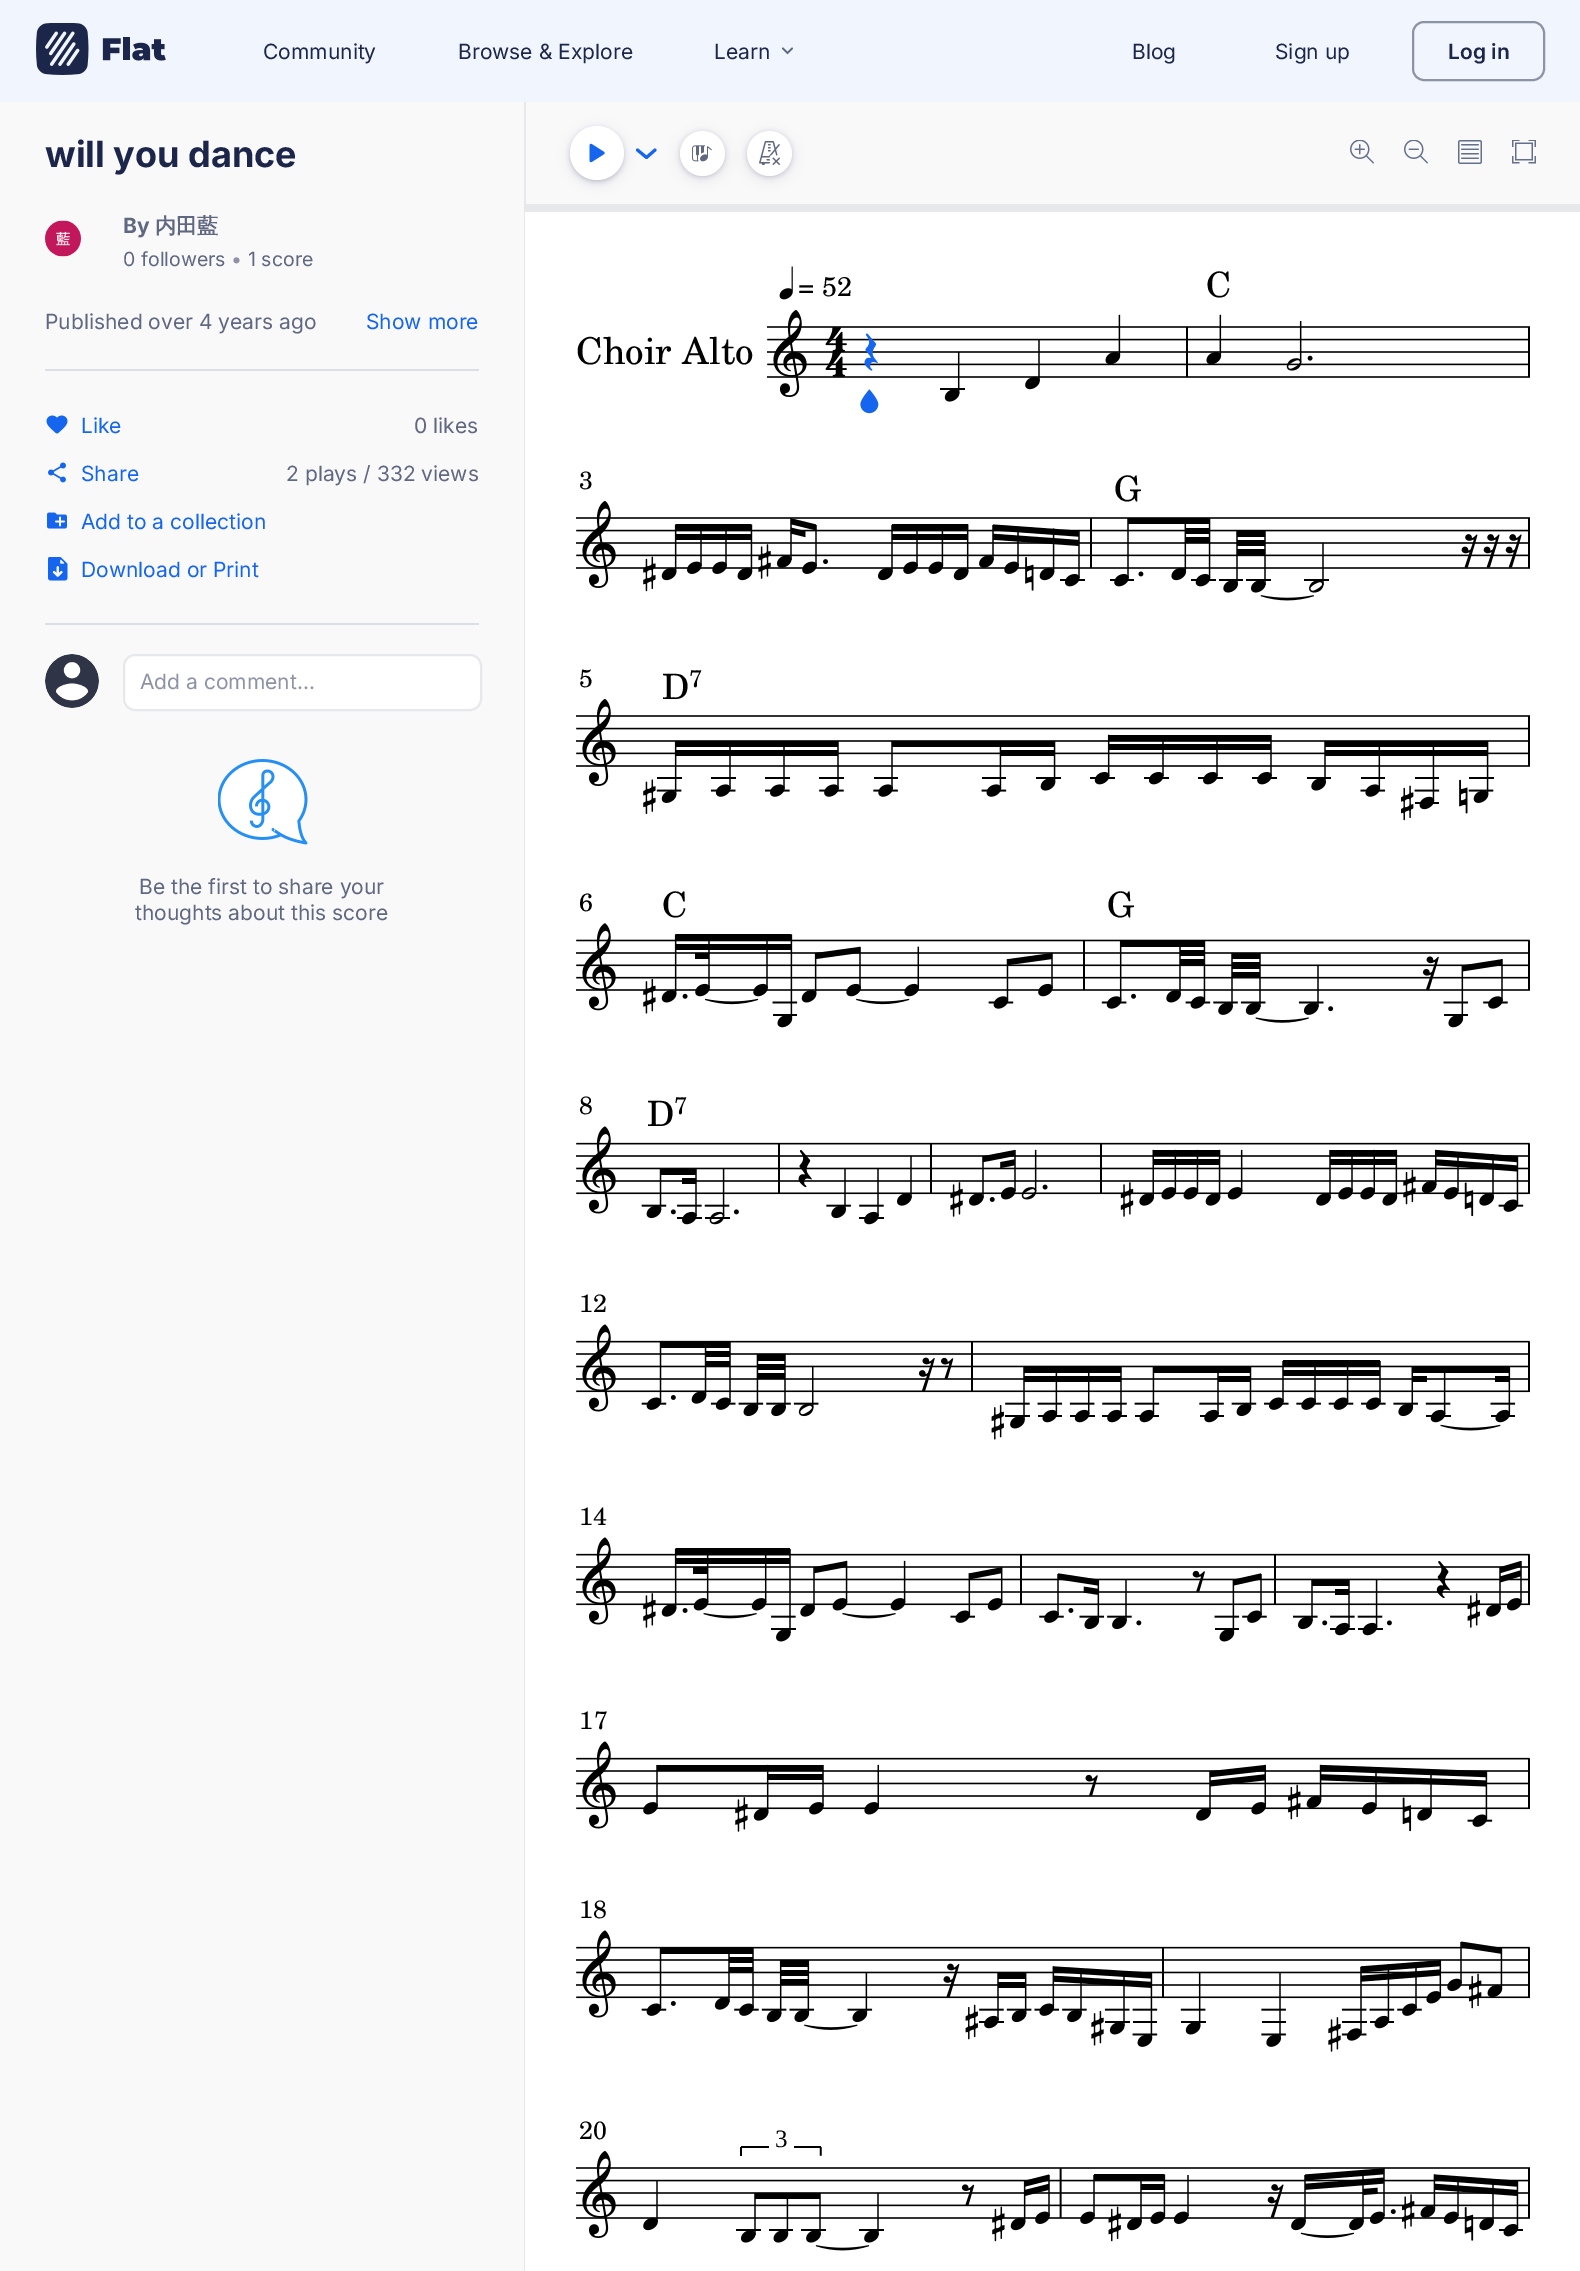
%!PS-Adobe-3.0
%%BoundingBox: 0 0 1580 2271
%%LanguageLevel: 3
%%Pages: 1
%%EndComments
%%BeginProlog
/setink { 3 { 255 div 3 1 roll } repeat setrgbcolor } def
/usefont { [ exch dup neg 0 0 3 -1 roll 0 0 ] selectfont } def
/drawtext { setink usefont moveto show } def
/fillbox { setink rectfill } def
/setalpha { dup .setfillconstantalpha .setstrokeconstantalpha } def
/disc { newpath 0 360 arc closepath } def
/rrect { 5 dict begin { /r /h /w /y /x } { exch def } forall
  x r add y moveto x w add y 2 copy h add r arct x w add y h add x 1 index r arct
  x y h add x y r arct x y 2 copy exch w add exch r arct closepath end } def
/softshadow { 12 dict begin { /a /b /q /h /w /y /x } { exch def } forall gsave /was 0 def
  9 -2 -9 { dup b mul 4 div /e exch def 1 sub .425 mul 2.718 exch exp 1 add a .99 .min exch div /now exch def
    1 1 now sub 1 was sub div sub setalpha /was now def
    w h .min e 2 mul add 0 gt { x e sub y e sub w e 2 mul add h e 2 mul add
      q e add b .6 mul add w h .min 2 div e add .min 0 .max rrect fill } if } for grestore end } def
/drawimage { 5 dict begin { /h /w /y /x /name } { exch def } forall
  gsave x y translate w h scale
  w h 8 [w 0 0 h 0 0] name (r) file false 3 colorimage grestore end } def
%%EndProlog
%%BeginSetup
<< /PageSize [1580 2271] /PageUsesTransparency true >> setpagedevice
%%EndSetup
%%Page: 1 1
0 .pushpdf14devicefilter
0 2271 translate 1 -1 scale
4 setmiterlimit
0 0 1580 2271 241 246 254 fillbox
(assets/img1.rgb) 36 23 130 52 drawimage
(Community) 263 59 /Inter-Regular 21 28 38 74 drawtext
(Browse & Explore) 458 59 /Inter-Regular 21 28 38 74 drawtext
(Learn) 714 59 /Inter-Regular 21 28 38 74 drawtext
(assets/img2.rgb) 781 47 12 8 drawimage
(Blog) 1132 59 /Inter-Regular 21 28 38 74 drawtext
(Sign up) 1275 59 /Inter-Regular 21 28 38 74 drawtext
141 147 165 setink
2 setlinewidth
1413 22 131 58 11 rrect stroke
(Log in) 1448 59 /Inter-SemiBold 21 28 38 74 drawtext
0 102 524 2169 249 249 250 fillbox
524 102 2 2169 231 232 236 fillbox
(will you dance) 45 167 /Inter-Bold 36 28 38 74 drawtext
255 255 255 setink
63 239 18 disc fill
(assets/img3.rgb) 45 220 36 37 drawimage
(By) 123 233 /Inter-Bold 21 95 103 129 drawtext
(内田藍) 155 233 /WenQuanYiZenHei-Bold 21 95 103 129 drawtext
(0 followers) 123 266 /Inter-Regular 19.5 95 103 129 drawtext
(•) 231 266 /Inter-Regular 19.5 141 147 165 drawtext
(1 score) 248 266 /Inter-Regular 19.5 95 103 129 drawtext
(Published over 4 years ago) 45 329 /Inter-Regular 21 95 103 129 drawtext
(Show more) 366 329 /Inter-Regular 21 21 101 239 drawtext
45 369 434 2 219 222 230 fillbox
(assets/img4.rgb) 46 415 22 19 drawimage
(Like) 81 433 /Inter-Regular 21 21 101 239 drawtext
(0 likes) 414 433 /Inter-Regular 21 95 103 129 drawtext
(assets/img5.rgb) 48 462 18 21 drawimage
(Share) 81 481 /Inter-Regular 21 21 101 239 drawtext
(2 plays / 332 views) 286 481 /Inter-Regular 21 95 103 129 drawtext
(assets/img6.rgb) 47 512 20 17 drawimage
(Add to a collection) 81 529 /Inter-Regular 21 21 101 239 drawtext
(assets/img7.rgb) 48 557 20 24 drawimage
(Download or Print) 81 577 /Inter-Regular 21 21 101 239 drawtext
45 623 434 2 219 222 230 fillbox
255 255 255 setink
72 681 27 disc fill
(assets/img8.rgb) 45 654 54 54 drawimage
124 655 357 55 11 rrect gsave fill grestore
231 232 236 setink
stroke
(Add a comment...) 140 689 /Inter-Regular 21 141 147 165 drawtext
(assets/img9.rgb) 218 759 90 86 drawimage
(Be the first to share your) 139 894 /Inter-Regular 21 95 103 129 drawtext
(thoughts about this score) 135 920 /Inter-Regular 21 95 103 129 drawtext
526 102 1054 102 249 249 250 fillbox
40 48 79 setink
570 128 54 54 27 2 0.2 softshadow
570 129 54 54 27 6 0.1 softshadow
255 255 255 setink
597 153 27 disc fill
(assets/img10.rgb) 589 143 16 20 drawimage
21 101 239 setink
3 setlinewidth
1 setlinecap
1 setlinejoin
637.5 150 moveto 646.5 157.5 lineto 655 150 lineto stroke
40 48 79 setink
680 132 45 45 22.5 2 0.2 softshadow
680 134 45 45 22.5 6 0.1 softshadow
255 255 255 setink
702.5 153.5 22.5 disc fill
(assets/img11.rgb) 692 145 20 17 drawimage
40 48 79 setink
747 132 45 45 22.5 2 0.2 softshadow
747 134 45 45 22.5 6 0.1 softshadow
255 255 255 setink
769.5 153.5 22.5 disc fill
(assets/img12.rgb) 759 141 21 24 drawimage
(assets/img13.rgb) 1350 140 24 24 drawimage
(assets/img14.rgb) 1404 140 24 24 drawimage
(assets/img15.rgb) 1458 140 24 24 drawimage
(assets/img16.rgb) 1512 140 24 24 drawimage
525 204 1055 8 231 232 236 fillbox
525 212 1055 2059 255 255 255 fillbox
(assets/img17.rgb) 767 266 763 148 drawimage
(= 52) 798 296 /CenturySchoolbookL-Regular 27 0 0 0 drawtext
(C) 1206 297 /CenturySchoolbookL-Regular 35 0 0 0 drawtext
(Choir Alto) 576 364 /CenturySchoolbookL-Regular 37 0 0 0 drawtext
(3) 579 489 /CenturySchoolbookL-Regular 25 0 0 0 drawtext
(assets/img18.rgb) 576 501 954 100 drawimage
(G) 1114 501 /CenturySchoolbookL-Regular 35 0 0 0 drawtext
(5) 579 687 /CenturySchoolbookL-Regular 25 0 0 0 drawtext
(D) 662 699 /CenturySchoolbookL-Regular 35 0 0 0 drawtext
(7) 689 687 /CenturySchoolbookL-Regular 24 0 0 0 drawtext
(assets/img19.rgb) 576 699 954 122 drawimage
(6) 579 911 /CenturySchoolbookL-Regular 25 0 0 0 drawtext
(C) 662 917 /CenturySchoolbookL-Regular 35 0 0 0 drawtext
(G) 1107 917 /CenturySchoolbookL-Regular 35 0 0 0 drawtext
(assets/img20.rgb) 576 923 954 105 drawimage
(8) 579 1114 /CenturySchoolbookL-Regular 25 0 0 0 drawtext
(D) 647 1126 /CenturySchoolbookL-Regular 35 0 0 0 drawtext
(7) 674 1114 /CenturySchoolbookL-Regular 24 0 0 0 drawtext
(assets/img21.rgb) 576 1126 954 99 drawimage
(12) 579 1312 /CenturySchoolbookL-Regular 25 0 0 0 drawtext
(assets/img22.rgb) 576 1324 954 116 drawimage
(14) 579 1525 /CenturySchoolbookL-Regular 25 0 0 0 drawtext
(assets/img23.rgb) 576 1537 954 105 drawimage
579 1729 moveto 1 0 (17) ashow
(assets/img24.rgb) 576 1741 954 91 drawimage
(18) 579 1918 /CenturySchoolbookL-Regular 25 0 0 0 drawtext
(assets/img25.rgb) 576 1930 954 122 drawimage
(20) 579 2139 /CenturySchoolbookL-Regular 25 0 0 0 drawtext
(assets/img26.rgb) 576 2146 954 105 drawimage
(3) 775 2147 /LiberationSerif-Regular 25 0 0 0 drawtext
.poppdf14devicefilter showpage
%%EOF
